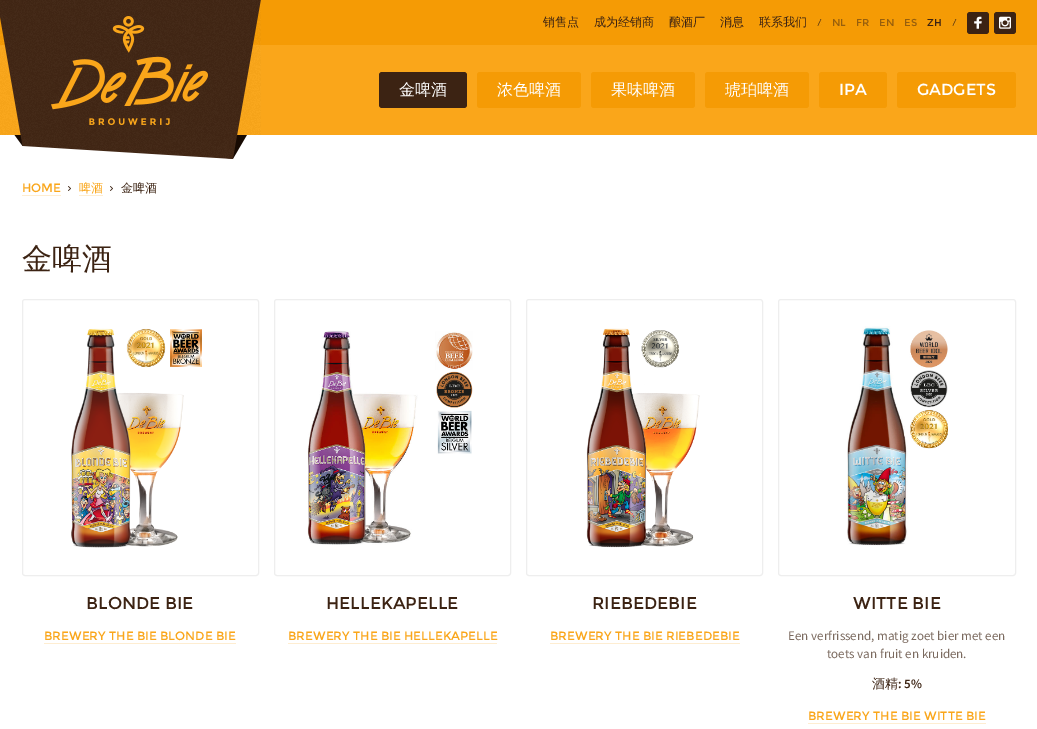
%!PS-Adobe-3.0
%%BoundingBox: 0 0 1037 729
%%LanguageLevel: 3
%%Pages: 1
%%EndComments
%%BeginProlog
/setink { 3 { 255 div 3 1 roll } repeat setrgbcolor } def
/usefont { [ exch dup neg 0 0 3 -1 roll 0 0 ] selectfont } def
/drawtext { setink usefont moveto show } def
/fillbox { setink rectfill } def
/rrect { 5 dict begin { /r /h /w /y /x } { exch def } forall
  x r add y moveto x w add y 2 copy h add r arct x w add y h add x 1 index r arct
  x y h add x y r arct x y 2 copy exch w add exch r arct closepath end } def
/drawimage { 5 dict begin { /h /w /y /x /name } { exch def } forall
  gsave x y translate w h scale
  w h 8 [w 0 0 h 0 0] name (r) file false 3 colorimage grestore end } def
%%EndProlog
%%BeginSetup
<< /PageSize [1037 729] >> setpagedevice
%%EndSetup
%%Page: 1 1
0 729 translate 1 -1 scale
4 setmiterlimit
0 0 1037 729 255 255 255 fillbox
0 0 1037 45 245 155 5 fillbox
0 45 1037 90 250 166 26 fillbox
(assets/img1.rgb) 0 0 261 159 drawimage
(assets/img2.rgb) 817 19 5 7 drawimage
(销售点) 543 26 /WenQuanYiZenHei-Medium 12 60 35 19 drawtext
(成为经销商) 594 26 /WenQuanYiZenHei-Medium 12 60 35 19 drawtext
(酿酒厂) 669 26 /WenQuanYiZenHei-Medium 12 60 35 19 drawtext
(消息) 720 26 /WenQuanYiZenHei-Medium 12 60 35 19 drawtext
(联系我们) 759 26 /WenQuanYiZenHei-Medium 12 60 35 19 drawtext
(assets/img3.rgb) 952 19 5 7 drawimage
(NL) 832 26 /Montserrat-Regular 10 151 95 13 drawtext
(FR) 856 26 /Montserrat-Regular 10 151 95 13 drawtext
(EN) 879 26 /Montserrat-Regular 10 151 95 13 drawtext
(ES) 904 26 /Montserrat-Regular 10 151 95 13 drawtext
(ZH) 927 26 /Montserrat-Regular 10 60 35 19 drawtext
967 12 22 22 3 rrect fill
(assets/img4.rgb) 974 16 8 13 drawimage
994 12 22 22 3 rrect fill
(assets/img5.rgb) 999 16 12 13 drawimage
379 72 88 36 3 rrect fill
(金啤酒) 399 95 /WenQuanYiZenHei-Medium 16 255 255 255 drawtext
245 155 5 setink
477 72 104 36 3 rrect fill
(浓色啤酒) 497 95 /WenQuanYiZenHei-Medium 16 255 255 255 drawtext
245 155 5 setink
591 72 104 36 3 rrect fill
(果味啤酒) 611 95 /WenQuanYiZenHei-Medium 16 255 255 255 drawtext
245 155 5 setink
705 72 104 36 3 rrect fill
(琥珀啤酒) 725 95 /WenQuanYiZenHei-Medium 16 255 255 255 drawtext
245 155 5 setink
819 72 68 36 3 rrect fill
(IPA) 839 95 /Montserrat-Regular 16 255 255 255 drawtext
245 155 5 setink
897 72 119 36 3 rrect fill
(GADGETS) 917 95 /Montserrat-Regular 16 255 255 255 drawtext
(assets/img6.rgb) 68 186 3 5 drawimage
(HOME) 22 192 /Montserrat-Regular 12 250 166 26 drawtext
22 195 39 1 254 237 209 fillbox
(assets/img6.rgb) 110 186 3 5 drawimage
(啤酒) 79 192 /WenQuanYiZenHei-Medium 12 250 166 26 drawtext
79 195 24 1 254 237 209 fillbox
(金啤酒) 121 192 /WenQuanYiZenHei-Medium 12 60 35 19 drawtext
(金啤酒) 22 269 /WenQuanYiZenHei-Medium 30 60 35 19 drawtext
238 238 238 setink
22.5 299.5 236 276 2.5 rrect stroke
(assets/img7.rgb) 71 328 131 220 drawimage
(BLONDE BIE) 86 609 /Montserrat-Regular 17 60 35 19 drawtext
(BREWERY THE BIE BLONDE BIE) 44 640 /Montserrat-Regular 12 250 166 26 drawtext
44 643 192 1 254 237 209 fillbox
238 238 238 setink
274.5 299.5 236 276 2.5 rrect stroke
(assets/img8.rgb) 307 330 166 215 drawimage
(HELLEKAPELLE) 326 609 /Montserrat-Regular 17 60 35 19 drawtext
(BREWERY THE BIE HELLEKAPELLE) 288 640 /Montserrat-Regular 12 250 166 26 drawtext
288 643 209 1 254 237 209 fillbox
238 238 238 setink
526.5 299.5 236 276 2.5 rrect stroke
(assets/img9.rgb) 586 328 114 220 drawimage
(RIEBEDEBIE) 592 609 /Montserrat-Regular 17 60 35 19 drawtext
(BREWERY THE BIE RIEBEDEBIE) 550 640 /Montserrat-Regular 12 250 166 26 drawtext
550 643 190 1 254 237 209 fillbox
238 238 238 setink
778.5 299.5 237 276 2.5 rrect stroke
(assets/img10.rgb) 847 326 101 220 drawimage
(WITTE BIE) 853 609 /Montserrat-Regular 17 60 35 19 drawtext
(Een verfrissend, matig zoet bier met een) 788 640 /SourceSansPro-Regular 13 123 106 95 drawtext
(toets van fruit en kruiden.) 827 658 /SourceSansPro-Regular 13 123 106 95 drawtext
(酒精) 872 688 /WenQuanYiZenHei-Medium 13 60 35 19 drawtext
(: 5%) 898 688 /SourceSansPro-SemiBold 13 60 35 19 drawtext
(BREWERY THE BIE WITTE BIE) 808 720 /Montserrat-Regular 12 250 166 26 drawtext
808 723 178 1 254 237 209 fillbox
showpage
%%EOF
